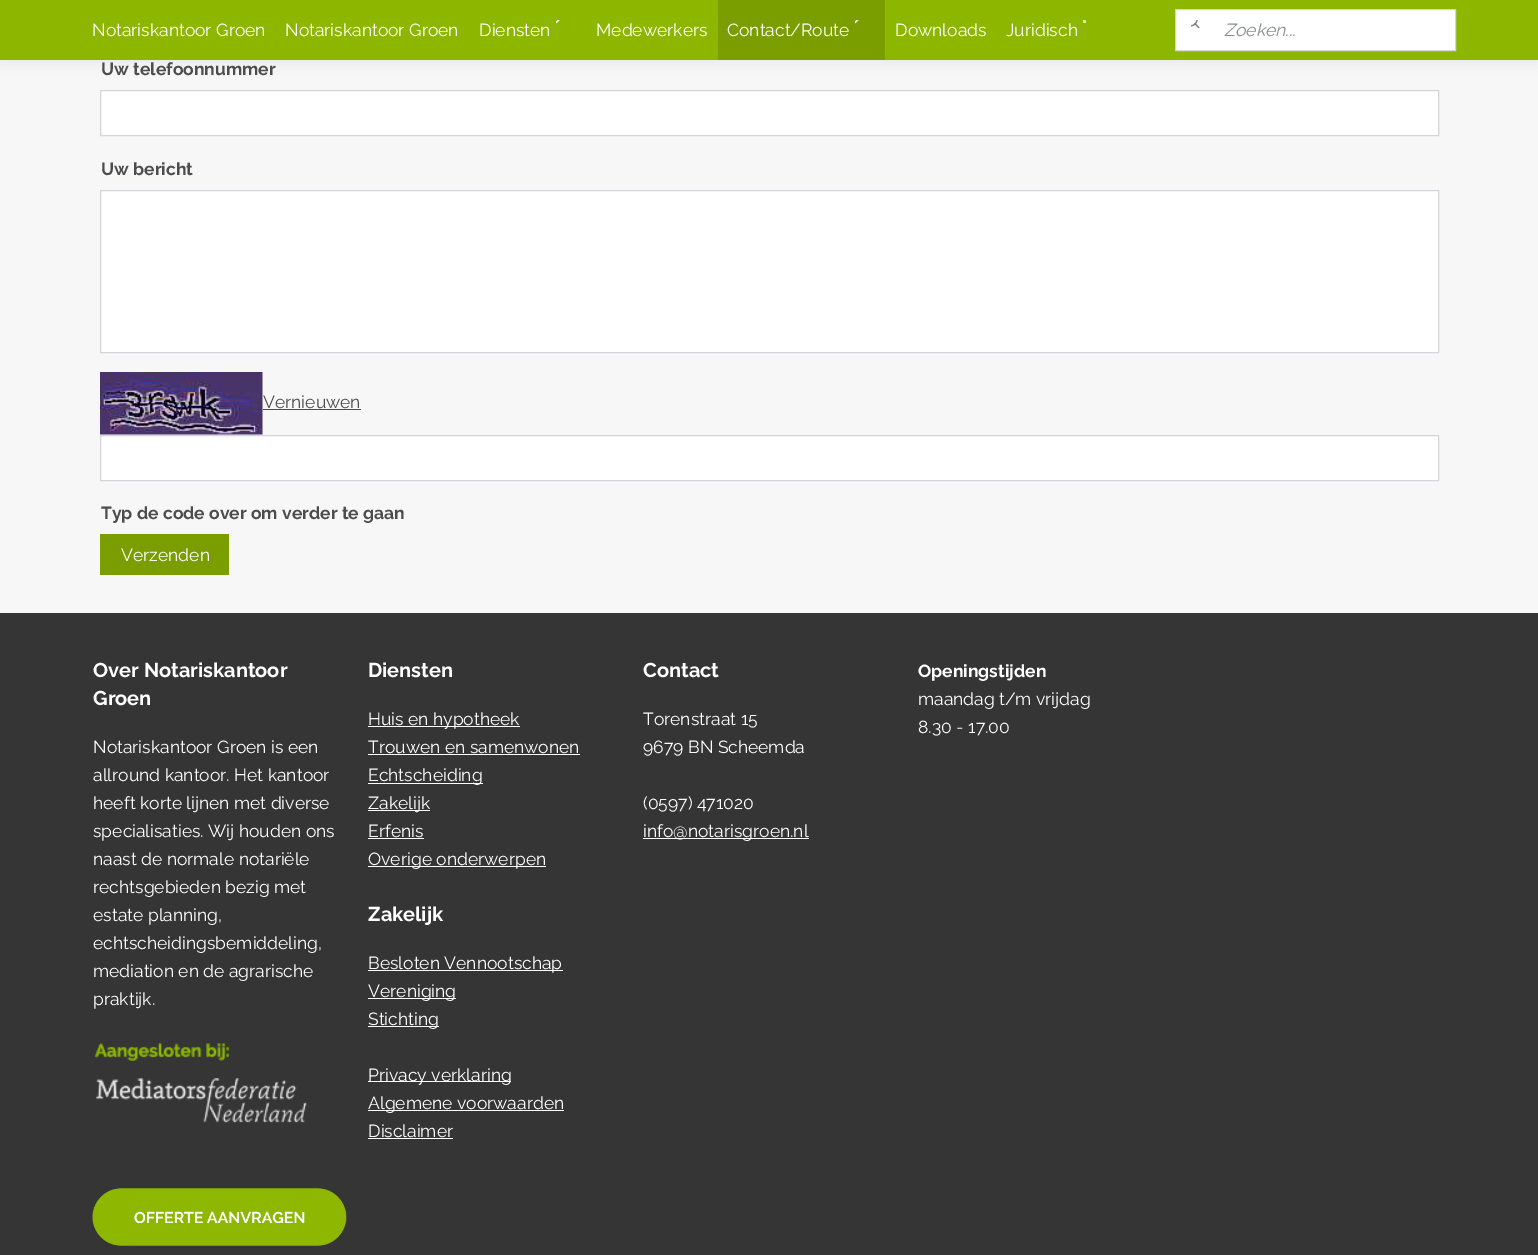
%!PS-Adobe-3.0
%%BoundingBox: 0 0 1538 1255
%%LanguageLevel: 3
%%Pages: 1
%%EndComments
%%BeginProlog
/setink { 3 { 255 div 3 1 roll } repeat setrgbcolor } def
/usefont { [ exch dup neg 0 0 3 -1 roll 0 0 ] selectfont } def
/drawtext { setink usefont moveto show } def
/fillbox { setink rectfill } def
/setalpha { dup .setfillconstantalpha .setstrokeconstantalpha } def
/rrect { 5 dict begin { /r /h /w /y /x } { exch def } forall
  x r add y moveto x w add y 2 copy h add r arct x w add y h add x 1 index r arct
  x y h add x y r arct x y 2 copy exch w add exch r arct closepath end } def
/softshadow { 12 dict begin { /a /b /q /h /w /y /x } { exch def } forall gsave /was 0 def
  9 -2 -9 { dup b mul 4 div /e exch def 1 sub .425 mul 2.718 exch exp 1 add a .99 .min exch div /now exch def
    1 1 now sub 1 was sub div sub setalpha /was now def
    w h .min e 2 mul add 0 gt { x e sub y e sub w e 2 mul add h e 2 mul add
      q e add b .6 mul add w h .min 2 div e add .min 0 .max rrect fill } if } for grestore end } def
/drawimage { 5 dict begin { /h /w /y /x /name } { exch def } forall
  gsave x y translate w h scale
  w h 8 [w 0 0 h 0 0] name (r) file false 3 colorimage grestore end } def
%%EndProlog
%%BeginSetup
<< /PageSize [1538 1255] /PageUsesTransparency true >> setpagedevice
%%EndSetup
%%Page: 1 1
0 .pushpdf14devicefilter
0 1255 translate 1 -1 scale
4 setmiterlimit
0 0 1538 1255 247 247 247 fillbox
0 0 0 setink
0 0 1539 60 0 7.5 0.08 softshadow
0 0 1538 60 140 182 0 fillbox
(Notariskantoor Groen) 92 36 /Raleway-Regular 17.5 255 255 255 drawtext
(Notariskantoor Groen) 285 36 /Raleway-Regular 17.5 255 255 255 drawtext
(assets/img1.rgb) 556 20 4 4 drawimage
(Diensten) 479 36 /Raleway-Regular 17.5 255 255 255 drawtext
(Medewerkers) 596 36 /Raleway-Regular 17.5 255 255 255 drawtext
718 0 167 60 122 158 0 fillbox
(assets/img2.rgb) 855 20 4 4 drawimage
(Contact/Route) 727 36 /Raleway-Regular 17.5 255 255 255 drawtext
(Downloads) 895 36 /Raleway-Regular 17.5 255 255 255 drawtext
1083 20 3 3 216 230 168 fillbox
(Juridisch) 1006 36 /Raleway-Regular 17.5 255 255 255 drawtext
1175.5 9.5 moveto 1455.5 9.5 lineto 1455.5 50.5 lineto 1175.5 50.5 lineto closepath gsave fill grestore
211 213 217 setink
stroke
(assets/img3.rgb) 1191 20 9 9 drawimage
(Zoeken...) 1224 36 /Raleway-Italic 17.5 137 140 145 drawtext
(Uw telefoonnummer) 101 75 /Raleway-Bold 17.5 77 77 77 drawtext
255 255 255 setink
100.5 90.5 moveto 1438.5 90.5 lineto 1438.5 135.5 lineto 100.5 135.5 lineto closepath gsave fill grestore
211 213 217 setink
stroke
(Uw bericht) 101 175 /Raleway-Bold 17.5 77 77 77 drawtext
255 255 255 setink
100.5 190.5 moveto 1438.5 190.5 lineto 1438.5 352.5 lineto 100.5 352.5 lineto closepath gsave fill grestore
211 213 217 setink
stroke
(assets/img4.rgb) 100 372 163 63 drawimage
(Vernieuwen) 263 408 /Raleway-Regular 17.5 77 77 77 drawtext
263 409 98 1 77 77 77 fillbox
255 255 255 setink
100.5 435.5 moveto 1438.5 435.5 lineto 1438.5 480.5 lineto 100.5 480.5 lineto closepath gsave fill grestore
211 213 217 setink
stroke
(Typ de code over om verder te gaan) 101 519 /Raleway-Bold 17.5 77 77 77 drawtext
100 534 129 41 122 158 0 fillbox
(Verzenden) 121 561 /Raleway-Regular 17.5 255 255 255 drawtext
0 613 1538 642 53 53 53 fillbox
(Over Notariskantoor) 93 677 /Raleway-Bold 20 255 255 255 drawtext
(Groen) 93 705 /Raleway-Bold 20 255 255 255 drawtext
(Notariskantoor Groen is een) 93 753 /Raleway-Regular 17.5 255 255 255 drawtext
(allround kantoor. Het kantoor) 93 781 /Raleway-Regular 17.5 255 255 255 drawtext
(heeft korte lijnen met diverse) 93 809 /Raleway-Regular 17.5 255 255 255 drawtext
(specialisaties. Wij houden ons) 93 837 /Raleway-Regular 17.5 255 255 255 drawtext
(naast de normale notariële) 93 865 /Raleway-Regular 17.5 255 255 255 drawtext
(rechtsgebieden bezig met) 93 893 /Raleway-Regular 17.5 255 255 255 drawtext
(estate planning,) 93 921 /Raleway-Regular 17.5 255 255 255 drawtext
(echtscheidingsbemiddeling,) 93 949 /Raleway-Regular 17.5 255 255 255 drawtext
(mediation en de agrarische) 93 977 /Raleway-Regular 17.5 255 255 255 drawtext
(praktijk.) 93 1005 /Raleway-Regular 17.5 255 255 255 drawtext
(assets/img5.rgb) 94 1043 213 80 drawimage
(assets/img6.rgb) 92 1188 255 58 drawimage
(Diensten) 368 677 /Raleway-Bold 20 255 255 255 drawtext
368 726 152 1 255 255 255 fillbox
(Huis en hypotheek) 368 725 /Raleway-Regular 17.5 255 255 255 drawtext
(Trouwen en samenwonen) 368 753 /Raleway-Regular 17.5 255 255 255 drawtext
368 754 212 1 255 255 255 fillbox
368 783 115 1 255 255 255 fillbox
(Echtscheiding) 368 781 /Raleway-Regular 17.5 255 255 255 drawtext
368 810 62 1 255 255 255 fillbox
(Zakelijk) 368 809 /Raleway-Regular 17.5 255 255 255 drawtext
(Erfenis) 368 837 /Raleway-Regular 17.5 255 255 255 drawtext
368 838 56 1 255 255 255 fillbox
368 866 178 1 255 255 255 fillbox
(Overige onderwerpen) 368 865 /Raleway-Regular 17.5 255 255 255 drawtext
(Zakelijk) 368 921 /Raleway-Bold 20 255 255 255 drawtext
368 970 195 1 255 255 255 fillbox
(Besloten Vennootschap) 368 969 /Raleway-Regular 17.5 255 255 255 drawtext
368 998 88 1 255 255 255 fillbox
(Vereniging) 368 997 /Raleway-Regular 17.5 255 255 255 drawtext
368 1026 71 1 255 255 255 fillbox
(Stichting) 368 1025 /Raleway-Regular 17.5 255 255 255 drawtext
368 1081 143 1 255 255 255 fillbox
(Privacy verklaring) 368 1081 /Raleway-Regular 17.5 255 255 255 drawtext
368 1110 196 1 255 255 255 fillbox
(Algemene voorwaarden) 368 1109 /Raleway-Regular 17.5 255 255 255 drawtext
(Disclaimer) 368 1137 /Raleway-Regular 17.5 255 255 255 drawtext
368 1138 85 1 255 255 255 fillbox
(Contact) 643 677 /Raleway-Bold 20 255 255 255 drawtext
(Torenstraat 15) 643 725 /Raleway-Regular 17.5 255 255 255 drawtext
(9679 BN Scheemda) 643 753 /Raleway-Regular 17.5 255 255 255 drawtext
(\(0597\) 471020) 643 809 /Raleway-Regular 17.5 255 255 255 drawtext
643 838 166 1 255 255 255 fillbox
(info@notarisgroen.nl) 643 837 /Raleway-Regular 17.5 255 255 255 drawtext
(Openingstijden) 918 677 /Raleway-Bold 17.5 255 255 255 drawtext
(maandag t/m vrijdag) 918 705 /Raleway-Regular 17.5 255 255 255 drawtext
(8.30 - 17.00) 918 733 /Raleway-Regular 17.5 255 255 255 drawtext
.poppdf14devicefilter showpage
%%EOF
